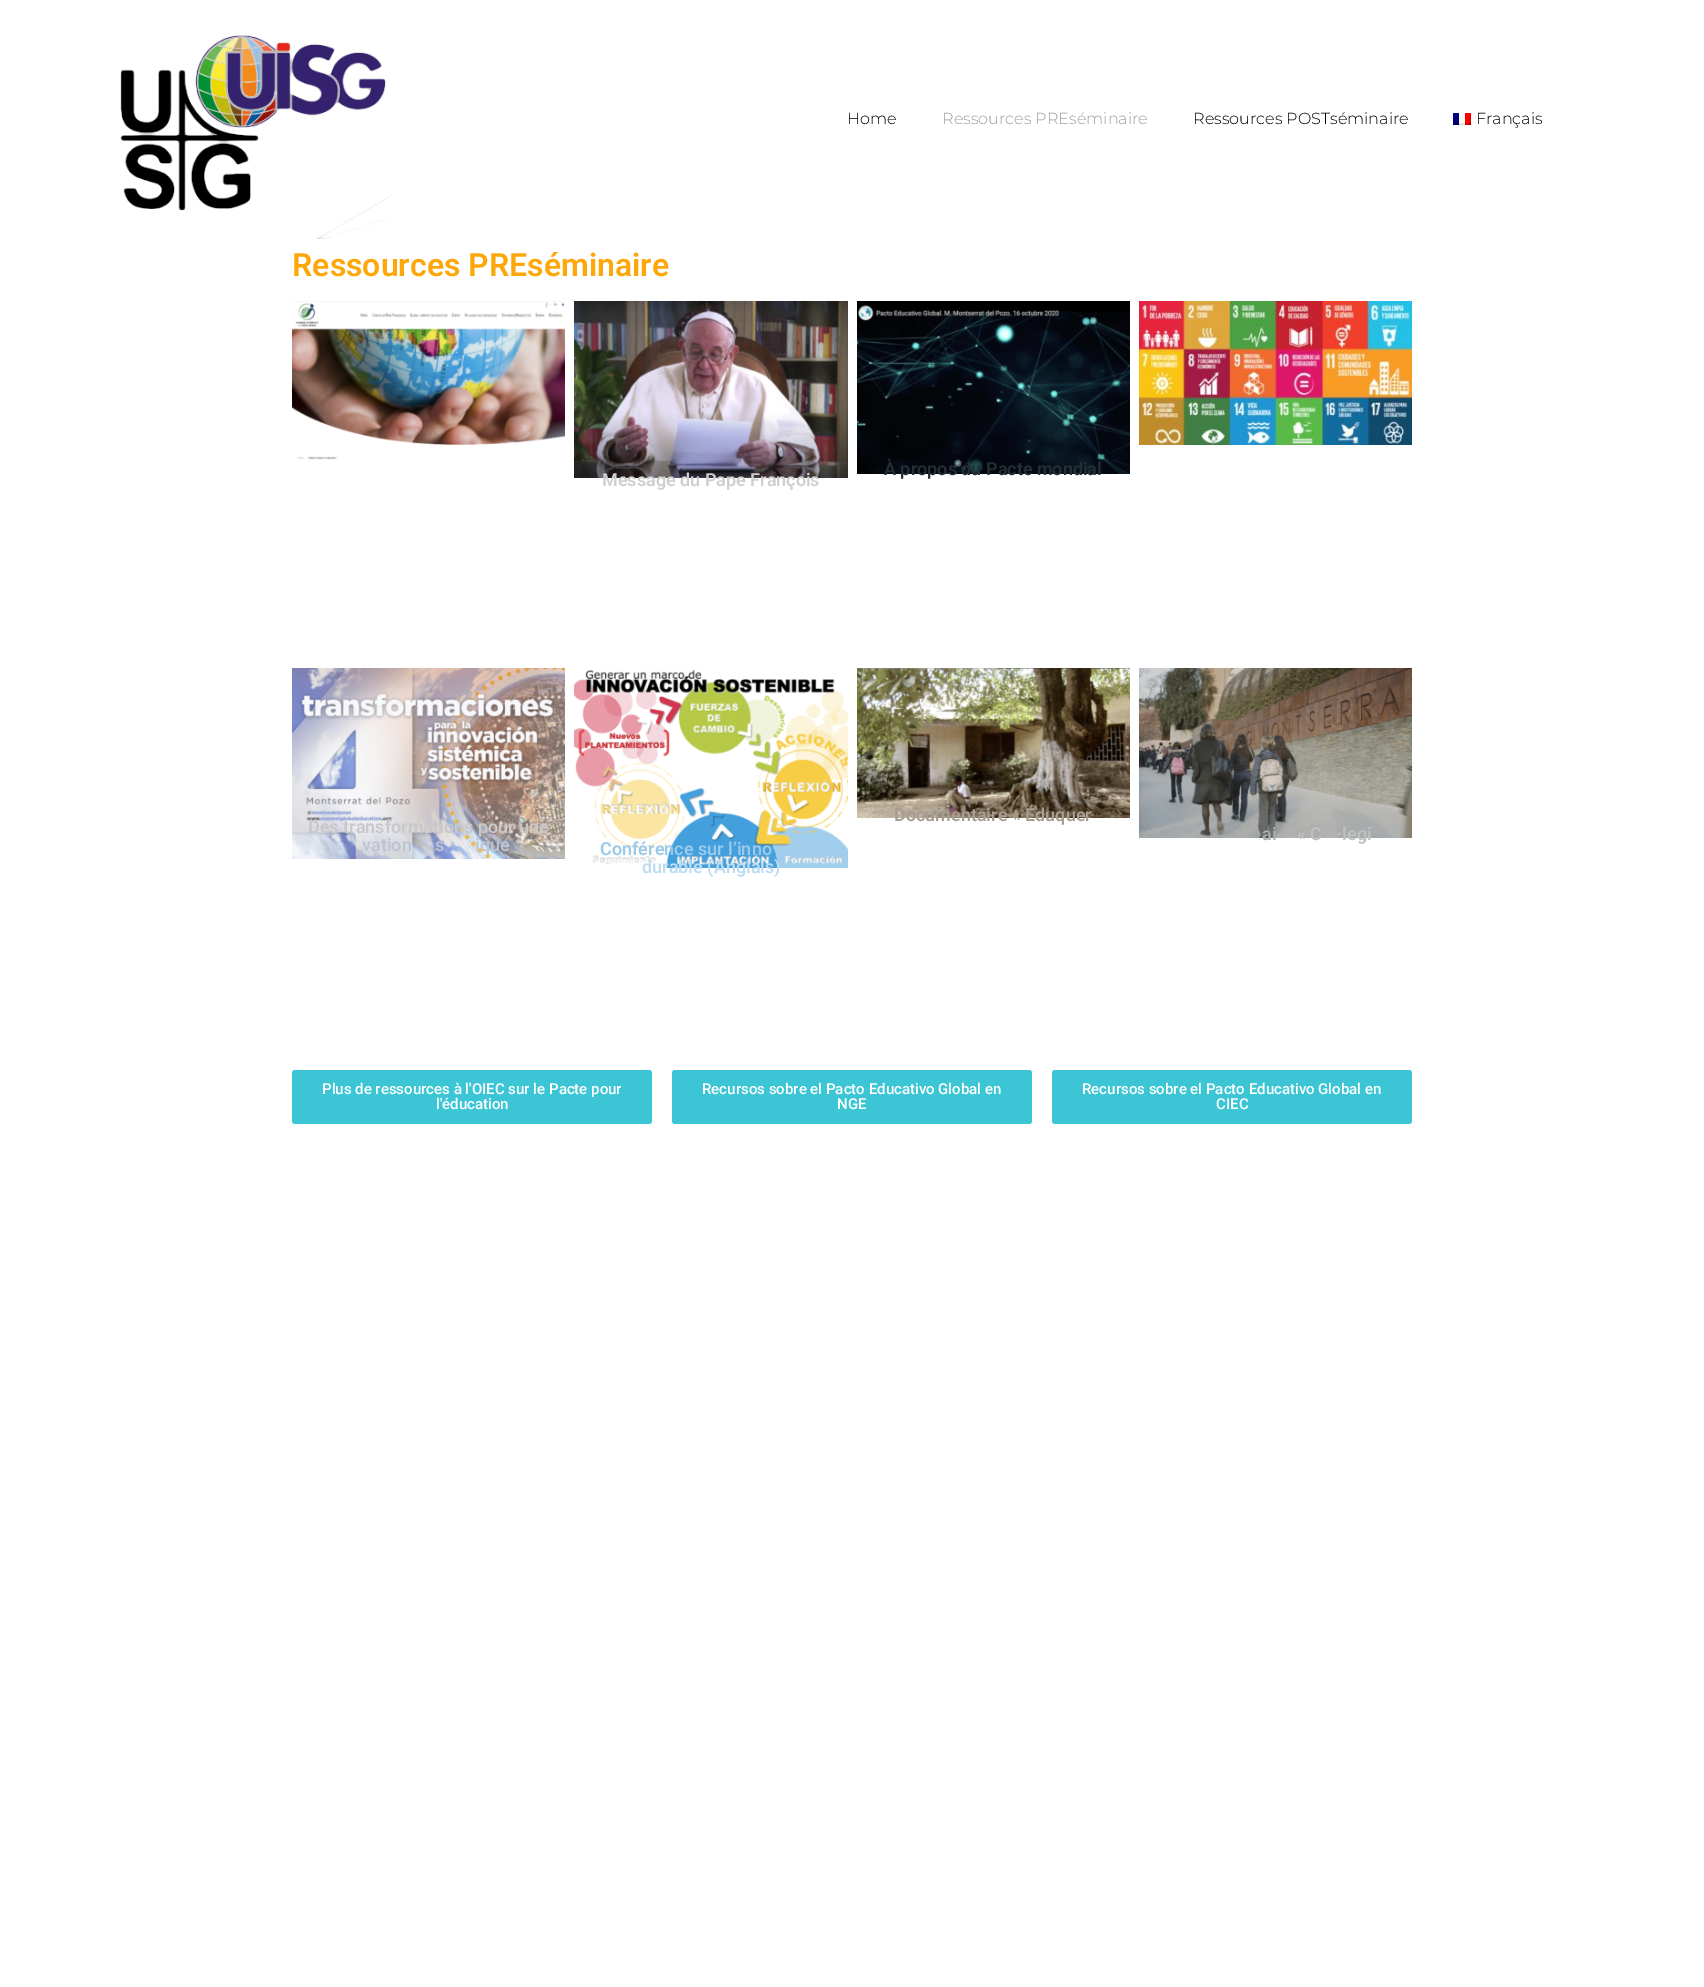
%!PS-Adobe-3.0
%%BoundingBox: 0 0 1704 1987
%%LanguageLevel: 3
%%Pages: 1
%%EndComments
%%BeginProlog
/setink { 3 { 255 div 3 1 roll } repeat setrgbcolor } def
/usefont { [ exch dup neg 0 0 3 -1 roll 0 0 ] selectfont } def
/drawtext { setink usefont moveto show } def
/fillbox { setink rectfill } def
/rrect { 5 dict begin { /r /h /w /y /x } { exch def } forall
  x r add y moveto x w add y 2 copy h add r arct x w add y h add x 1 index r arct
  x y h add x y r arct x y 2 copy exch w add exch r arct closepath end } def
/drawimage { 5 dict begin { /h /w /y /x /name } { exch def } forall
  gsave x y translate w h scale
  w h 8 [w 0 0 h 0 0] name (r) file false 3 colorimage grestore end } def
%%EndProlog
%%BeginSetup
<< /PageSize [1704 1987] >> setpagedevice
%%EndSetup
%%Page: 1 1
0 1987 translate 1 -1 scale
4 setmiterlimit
0 0 1704 1987 255 255 255 fillbox
(assets/img1.rgb) 120 35 272 204 drawimage
(Home) 847 124 /Montserrat-Light 16 0 0 0 drawtext
(Ressources PREséminaire) 942 124 /Montserrat-Light 16 158 158 158 drawtext
(Ressources POSTséminaire) 1193 124 /Montserrat-Light 16 0 0 0 drawtext
(assets/img2.rgb) 1453 113 18 12 drawimage
(Français) 1476 124 /Montserrat-Light 16 0 0 0 drawtext
(Ressources PREséminaire) 292 276 /Roboto-SemiBold 32 254 167 9 drawtext
(assets/img3.rgb) 292 301 273 159 drawimage
(assets/img4.rgb) 1139 301 273 144 drawimage
(assets/img5.rgb) 857 301 273 173 drawimage
(À propos du Pacte mondial) 884 475 /Roboto-SemiBold 18 38 46 53 drawtext
(assets/img6.rgb) 574 301 274 177 drawimage
(Message du Pape François) 602 486 /Roboto-SemiBold 18 208 207 208 drawtext
(assets/img7.rgb) 857 668 273 150 drawimage
(Documentaire « Éduquer) 894 821 /Roboto-SemiBold 18 167 157 144 drawtext
(assets/img8.rgb) 292 668 273 191 drawimage
(Des transformations pour une) 308 833 /Roboto-SemiBold 18 202 199 201 drawtext
(vation) 362 851 /Roboto-SemiBold 18 191 196 210 drawtext
(s) 435 851 /Roboto-SemiBold 18 191 196 210 drawtext
(ique) 475 851 /Roboto-SemiBold 18 191 196 210 drawtext
(assets/img9.rgb) 1139 668 273 170 drawimage
(ai) 1262 840 /Roboto-SemiBold 18 173 175 174 drawtext
(« C) 1297 840 /Roboto-SemiBold 18 191 193 192 drawtext
(·legi) 1337 840 /Roboto-SemiBold 18 191 193 192 drawtext
(assets/img10.rgb) 574 669 274 199 drawimage
(Conférence sur l’inno) 600 855 /Roboto-SemiBold 18 153 202 234 drawtext
(durable \(Anglais\)) 642 873 /Roboto-SemiBold 18 190 221 242 drawtext
60 198 213 setink
292 1070 360 54 3 rrect fill
(Plus de ressources à l'OIEC sur le Pacte pour) 322 1094 /Roboto-Medium 15 255 255 255 drawtext
(l'éducation) 436 1109 /Roboto-Medium 15 255 255 255 drawtext
60 198 213 setink
672 1070 360 54 3 rrect fill
(Recursos sobre el Pacto Educativo Global en) 702 1094 /Roboto-Medium 15 255 255 255 drawtext
(NGE) 837 1109 /Roboto-Medium 15 255 255 255 drawtext
60 198 213 setink
1052 1070 360 54 3 rrect fill
(Recursos sobre el Pacto Educativo Global en) 1082 1094 /Roboto-Medium 15 255 255 255 drawtext
(CIEC) 1216 1109 /Roboto-Medium 15 255 255 255 drawtext
showpage
%%EOF
